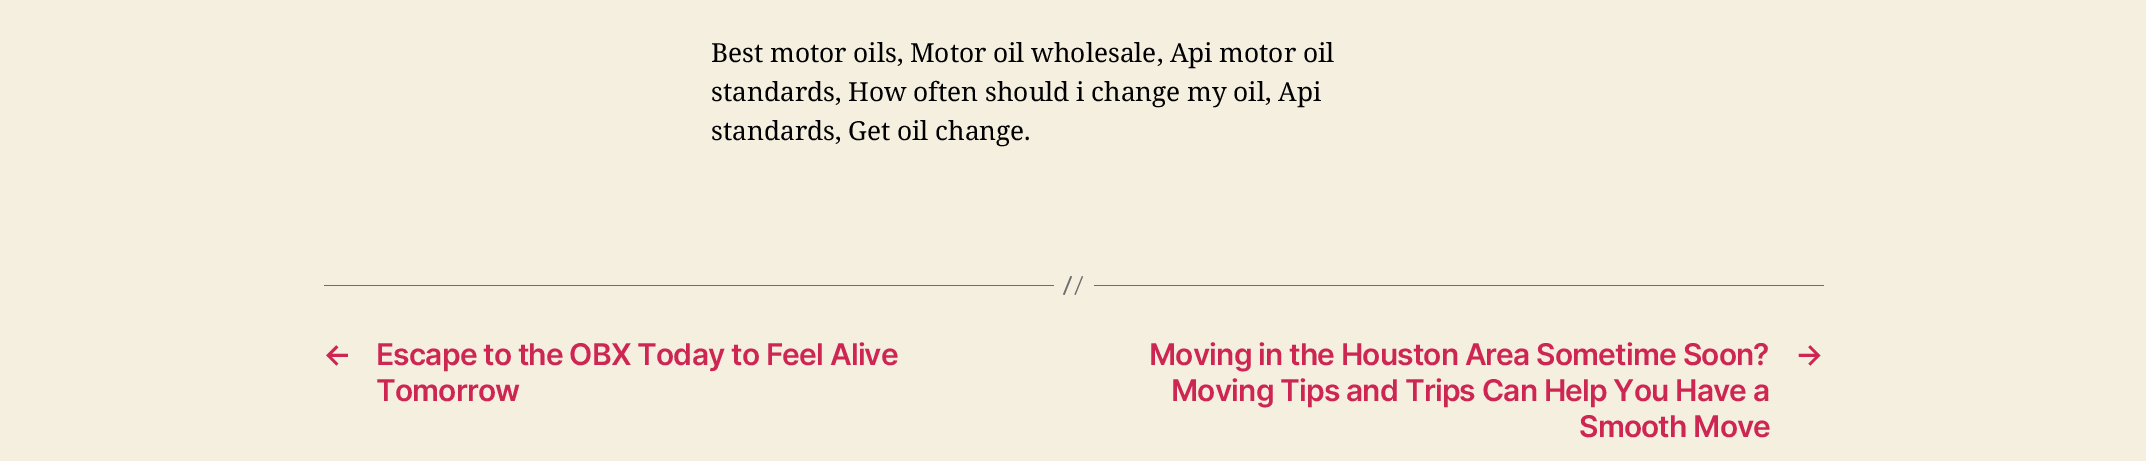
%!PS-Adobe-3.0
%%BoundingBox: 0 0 2146 461
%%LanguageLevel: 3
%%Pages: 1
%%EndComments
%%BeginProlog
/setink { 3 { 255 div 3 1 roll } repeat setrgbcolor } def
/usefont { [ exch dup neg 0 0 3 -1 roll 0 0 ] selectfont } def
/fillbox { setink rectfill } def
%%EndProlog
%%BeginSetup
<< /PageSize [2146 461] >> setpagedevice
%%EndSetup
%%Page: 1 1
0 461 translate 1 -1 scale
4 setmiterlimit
0 0 2146 461 245 239 224 fillbox
/NotoSerif-Regular 26.25 usefont
0 0 0 setink
711 62 moveto -0.25 0 32 (Best motor oils, Motor oil wholesale, Api motor oil) widthshow
711 101 moveto -0.25 0 32 (standards, How often should i change my oil, Api) widthshow
711 140 moveto -0.25 0 32 (standards, Get oil change.) widthshow
1094 285 730 1 109 109 109 fillbox
324 285 730 1 109 109 109 fillbox
1070.5 276 moveto 1072 276.5 lineto 1064.5 295 lineto 1063 294.5 lineto closepath 1082 276 moveto 1083 276.5 lineto 1075.5 295 lineto 1074.5 294.5 lineto closepath fill
/Inter-SemiBold 30 usefont
205 38 83 setink
323 365 moveto -0.85 0 (←) ashow
376 365 moveto -0.85 0 (Escape to the OBX Today to Feel Alive) ashow
376 401 moveto -0.85 0 (Tomorrow) ashow
1149 365 moveto -0.85 0 (Moving in the Houston Area Sometime Soon?) ashow
1171 401 moveto -0.85 0 (Moving Tips and Trips Can Help You Have a) ashow
1579 437 moveto -0.85 0 (Smooth Move) ashow
1795 365 moveto -0.85 0 (→) ashow
showpage
%%EOF
